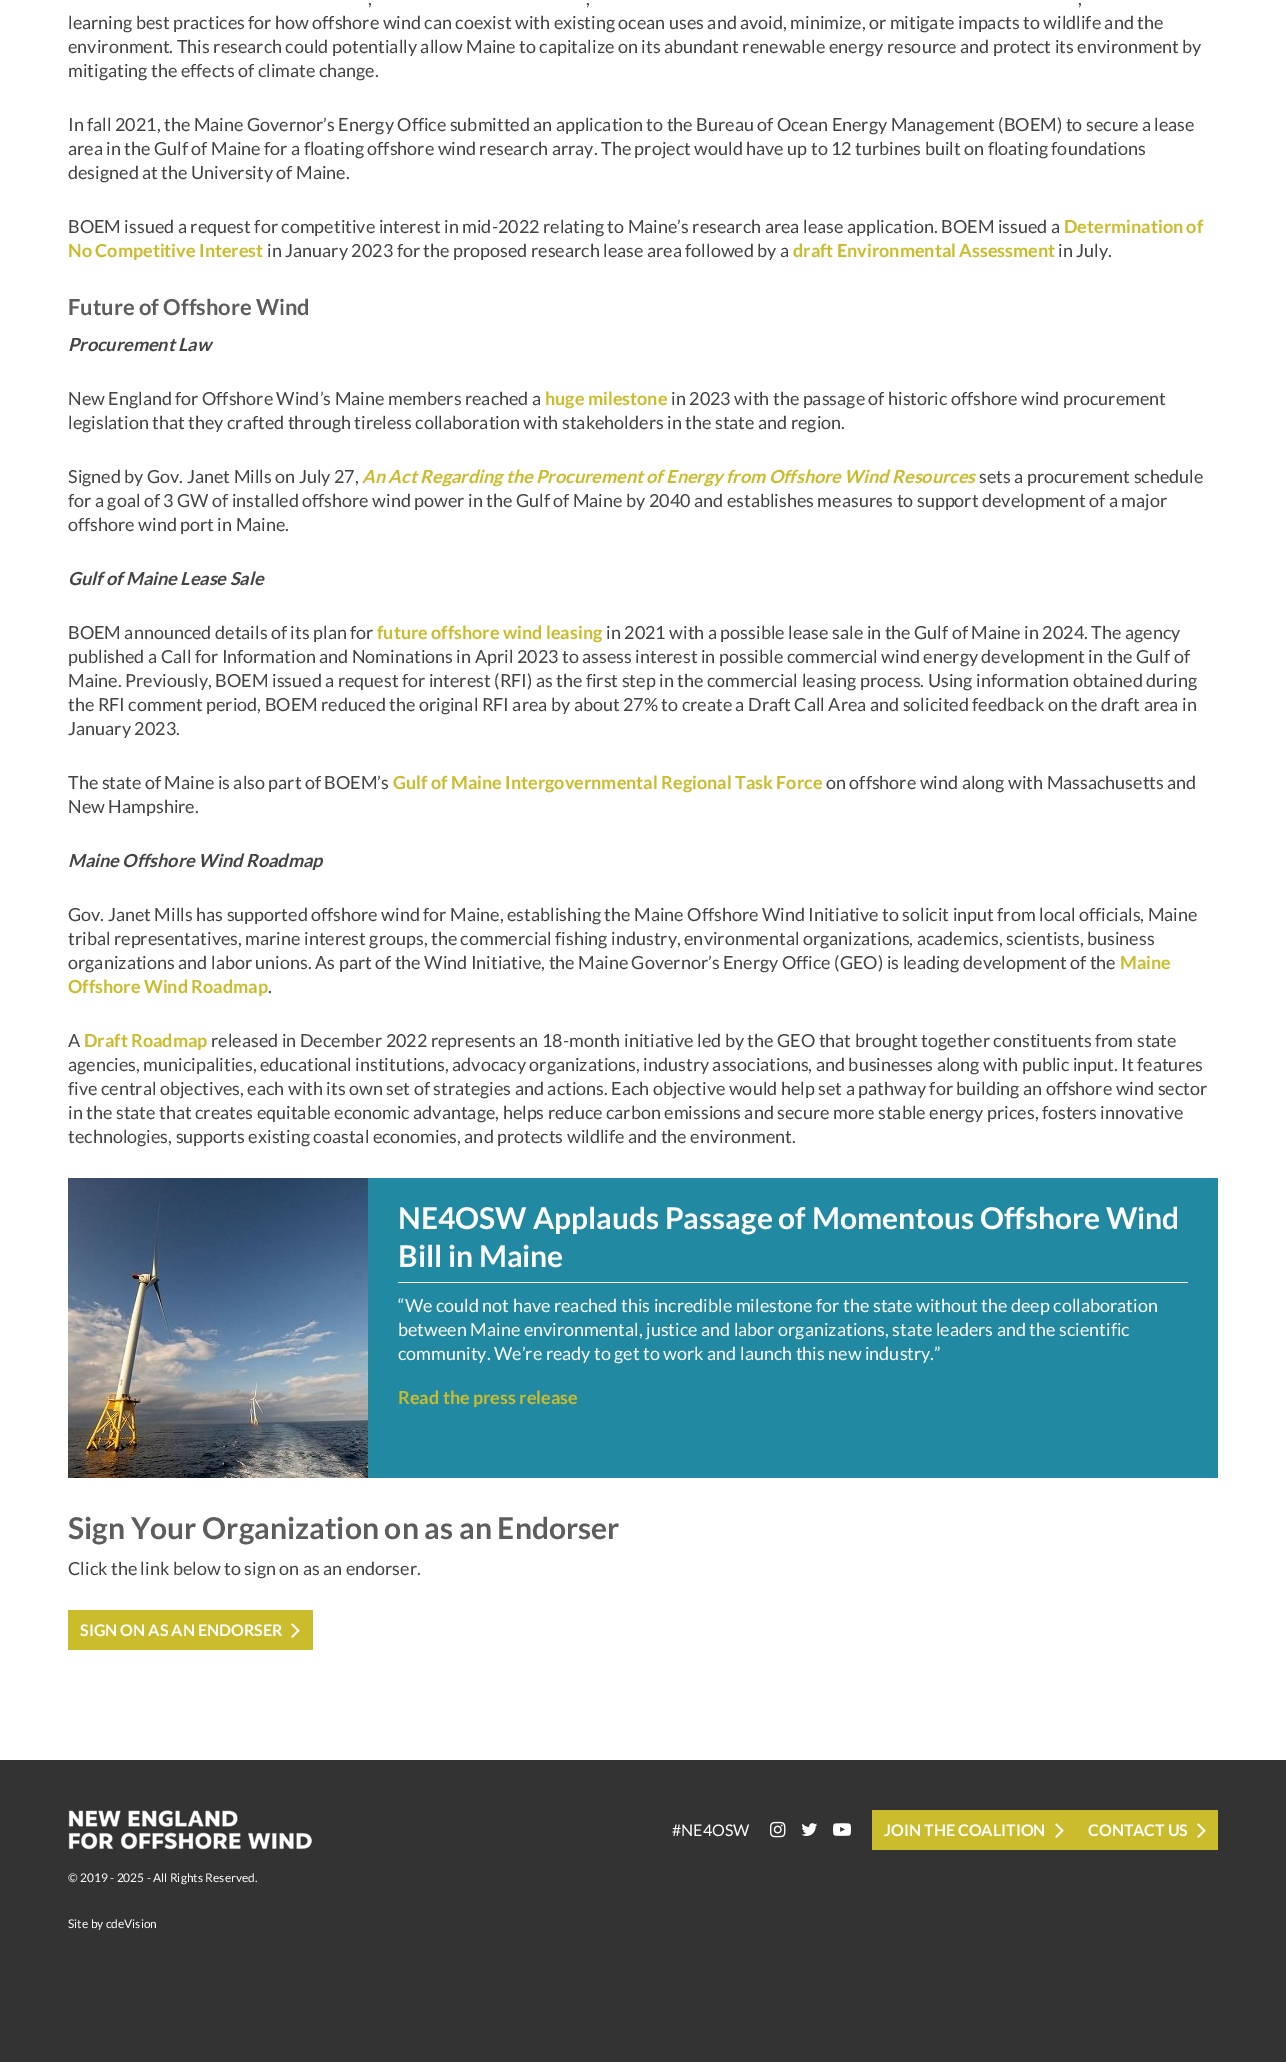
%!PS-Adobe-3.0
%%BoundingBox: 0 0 1286 2062
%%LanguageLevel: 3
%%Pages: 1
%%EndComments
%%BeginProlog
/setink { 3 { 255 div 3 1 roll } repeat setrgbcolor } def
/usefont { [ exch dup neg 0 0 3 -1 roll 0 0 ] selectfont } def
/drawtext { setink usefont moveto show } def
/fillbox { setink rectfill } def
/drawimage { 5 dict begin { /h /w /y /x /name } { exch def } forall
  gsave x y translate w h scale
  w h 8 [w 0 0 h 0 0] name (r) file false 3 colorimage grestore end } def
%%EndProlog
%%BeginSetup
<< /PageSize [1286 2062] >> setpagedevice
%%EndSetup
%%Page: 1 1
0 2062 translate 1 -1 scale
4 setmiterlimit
0 0 1286 2062 255 255 255 fillbox
(,) 368 5 /Lato-Regular 18 68 68 68 drawtext
(,) 586 5 /Lato-Regular 18 68 68 68 drawtext
(,) 1078 5 /Lato-Regular 18 68 68 68 drawtext
(learning best practices for how offshore wind can coexist with existing ocean uses and avoid, minimize, or mitigate impacts to wildlife and the) 68 29 /Lato-Regular 18 68 68 68 drawtext
(environment. This research could potentially allow Maine to capitalize on its abundant renewable energy resource and protect its environment by) 68 53 /Lato-Regular 18 68 68 68 drawtext
(mitigating the effects of climate change.) 68 77 /Lato-Regular 18 68 68 68 drawtext
(In fall 2021, the Maine Governor’s Energy Office submitted an application to the Bureau of Ocean Energy Management \(BOEM\) to secure a lease) 68 131 /Lato-Regular 18 68 68 68 drawtext
(area in the Gulf of Maine for a floating offshore wind research array. The project would have up to 12 turbines built on floating foundations) 68 155 /Lato-Regular 18 68 68 68 drawtext
(designed at the University of Maine.) 68 179 /Lato-Regular 18 68 68 68 drawtext
(BOEM issued a request for competitive interest in mid-2022 relating to Maine’s research area lease application. BOEM issued a) 68 233 /Lato-Regular 18 68 68 68 drawtext
(Determination of) 1064 233 /Lato-Bold 18 203 188 45 drawtext
(No Competitive Interest) 68 257 /Lato-Bold 18 203 188 45 drawtext
(in January 2023 for the proposed research lease area followed by a) 267 257 /Lato-Regular 18 68 68 68 drawtext
(draft Environmental Assessment) 793 257 /Lato-Bold 18 203 188 45 drawtext
(in July.) 1058 257 /Lato-Regular 18 68 68 68 drawtext
(Future of Offshore Wind) 68 315 /Lato-Bold 22 93 93 93 drawtext
(Procurement Law) 68 351 /Lato-BoldItalic 18 68 68 68 drawtext
(New England for Offshore Wind’s Maine members reached a) 68 405 /Lato-Regular 18 68 68 68 drawtext
(huge milestone) 545 405 /Lato-Bold 18 203 188 45 drawtext
(in 2023 with the passage of historic offshore wind procurement) 671 405 /Lato-Regular 18 68 68 68 drawtext
(legislation that they crafted through tireless collaboration with stakeholders in the state and region.) 68 429 /Lato-Regular 18 68 68 68 drawtext
(Signed by Gov. Janet Mills on July 27,) 68 483 /Lato-Regular 18 68 68 68 drawtext
(An Act Regarding the Procurement of Energy from Offshore Wind Resources) 362 483 /Lato-BoldItalic 18 203 188 45 drawtext
(sets a procurement schedule) 979 483 /Lato-Regular 18 68 68 68 drawtext
(for a goal of 3 GW of installed offshore wind power in the Gulf of Maine by 2040 and establishes measures to support development of a major) 68 507 /Lato-Regular 18 68 68 68 drawtext
(offshore wind port in Maine.) 68 531 /Lato-Regular 18 68 68 68 drawtext
(Gulf of Maine Lease Sale) 68 585 /Lato-BoldItalic 18 68 68 68 drawtext
(BOEM announced details of its plan for) 68 639 /Lato-Regular 18 68 68 68 drawtext
(future offshore wind leasing) 377 639 /Lato-Bold 18 203 188 45 drawtext
(in 2021 with a possible lease sale in the Gulf of Maine in 2024. The agency) 606 639 /Lato-Regular 18 68 68 68 drawtext
(published a Call for Information and Nominations in April 2023 to assess interest in possible commercial wind energy development in the Gulf of) 68 663 /Lato-Regular 18 68 68 68 drawtext
(Maine. Previously, BOEM issued a request for interest \(RFI\) as the first step in the commercial leasing process. Using information obtained during) 68 687 /Lato-Regular 18 68 68 68 drawtext
(the RFI comment period, BOEM reduced the original RFI area by about 27% to create a Draft Call Area and solicited feedback on the draft area in) 68 711 /Lato-Regular 18 68 68 68 drawtext
(January 2023.) 68 735 /Lato-Regular 18 68 68 68 drawtext
(The state of Maine is also part of BOEM’s) 68 789 /Lato-Regular 18 68 68 68 drawtext
(Gulf of Maine Intergovernmental Regional Task Force) 393 789 /Lato-Bold 18 203 188 45 drawtext
(on offshore wind along with Massachusetts and) 826 789 /Lato-Regular 18 68 68 68 drawtext
(New Hampshire.) 68 813 /Lato-Regular 18 68 68 68 drawtext
(Maine Offshore Wind Roadmap) 68 867 /Lato-BoldItalic 18 68 68 68 drawtext
(Gov. Janet Mills has supported offshore wind for Maine, establishing the Maine Offshore Wind Initiative to solicit input from local officials, Maine) 68 921 /Lato-Regular 18 68 68 68 drawtext
(tribal representatives, marine interest groups, the commercial fishing industry, environmental organizations, academics, scientists, business) 68 945 /Lato-Regular 18 68 68 68 drawtext
(organizations and labor unions. As part of the Wind Initiative, the Maine Governor’s Energy Office \(GEO\) is leading development of the) 68 969 /Lato-Regular 18 68 68 68 drawtext
(Maine) 1120 969 /Lato-Bold 18 203 188 45 drawtext
(Offshore Wind Roadmap) 68 993 /Lato-Bold 18 203 188 45 drawtext
(.) 268 993 /Lato-Regular 18 68 68 68 drawtext
(A) 68 1047 /Lato-Regular 18 68 68 68 drawtext
(Draft Roadmap) 84 1047 /Lato-Bold 18 203 188 45 drawtext
(released in December 2022 represents an 18-month initiative led by the GEO that brought together constituents from state) 211 1047 /Lato-Regular 18 68 68 68 drawtext
(agencies, municipalities, educational institutions, advocacy organizations, industry associations, and businesses along with public input. It features) 68 1071 /Lato-Regular 18 68 68 68 drawtext
(five central objectives, each with its own set of strategies and actions. Each objective would help set a pathway for building an offshore wind sector) 68 1095 /Lato-Regular 18 68 68 68 drawtext
(in the state that creates equitable economic advantage, helps reduce carbon emissions and secure more stable energy prices, fosters innovative) 68 1119 /Lato-Regular 18 68 68 68 drawtext
(technologies, supports existing coastal economies, and protects wildlife and the environment.) 68 1143 /Lato-Regular 18 68 68 68 drawtext
368 1178 850 300 34 137 163 fillbox
(assets/img1.rgb) 68 1178 300 300 drawimage
398 1282 790 1 255 255 255 fillbox
(NE4OSW Applauds Passage of Momentous Offshore Wind) 398 1229 /Lato-Bold 30 255 255 255 drawtext
(Bill in Maine) 398 1267 /Lato-Bold 30 255 255 255 drawtext
(“We could not have reached this incredible milestone for the state without the deep collaboration) 398 1312 /Lato-Regular 18 255 255 255 drawtext
(between Maine environmental, justice and labor organizations, state leaders and the scientific) 398 1336 /Lato-Regular 18 255 255 255 drawtext
(community. We’re ready to get to work and launch this new industry.”) 398 1360 /Lato-Regular 18 255 255 255 drawtext
(Read the press release) 398 1404 /Lato-Bold 18 203 188 45 drawtext
(Sign Your Organization on as an Endorser) 68 1539 /Lato-Bold 30 93 93 93 drawtext
(Click the link below to sign on as an endorser.) 68 1575 /Lato-Regular 18 68 68 68 drawtext
68 1610 245 40 203 188 45 fillbox
(SIGN ON AS AN ENDORSER) 80 1636 /Lato-Bold 16 255 255 255 drawtext
(assets/img2.rgb) 291 1623 9 15 drawimage
0 1760 1286 302 51 51 51 fillbox
(assets/img3.rgb) 68 1810 244 40 drawimage
(#NE4OSW) 672 1836 /Lato-Regular 16 255 255 255 drawtext
(assets/img4.rgb) 770 1821 16 17 drawimage
(assets/img5.rgb) 801 1823 17 13 drawimage
(assets/img6.rgb) 833 1823 18 13 drawimage
872 1810 346 40 203 188 45 fillbox
(JOIN THE COALITION) 884 1836 /Lato-Bold 16 255 255 255 drawtext
(assets/img2.rgb) 1055 1823 9 15 drawimage
(CONTACT US) 1088 1836 /Lato-Bold 16 255 255 255 drawtext
(assets/img2.rgb) 1197 1823 9 15 drawimage
(© 2019 - 2025 - All Rights Reserved.) 68 1882 /Lato-Regular 12 255 255 255 drawtext
(Site by cdeVision) 68 1928 /Lato-Regular 12 255 255 255 drawtext
showpage
%%EOF
